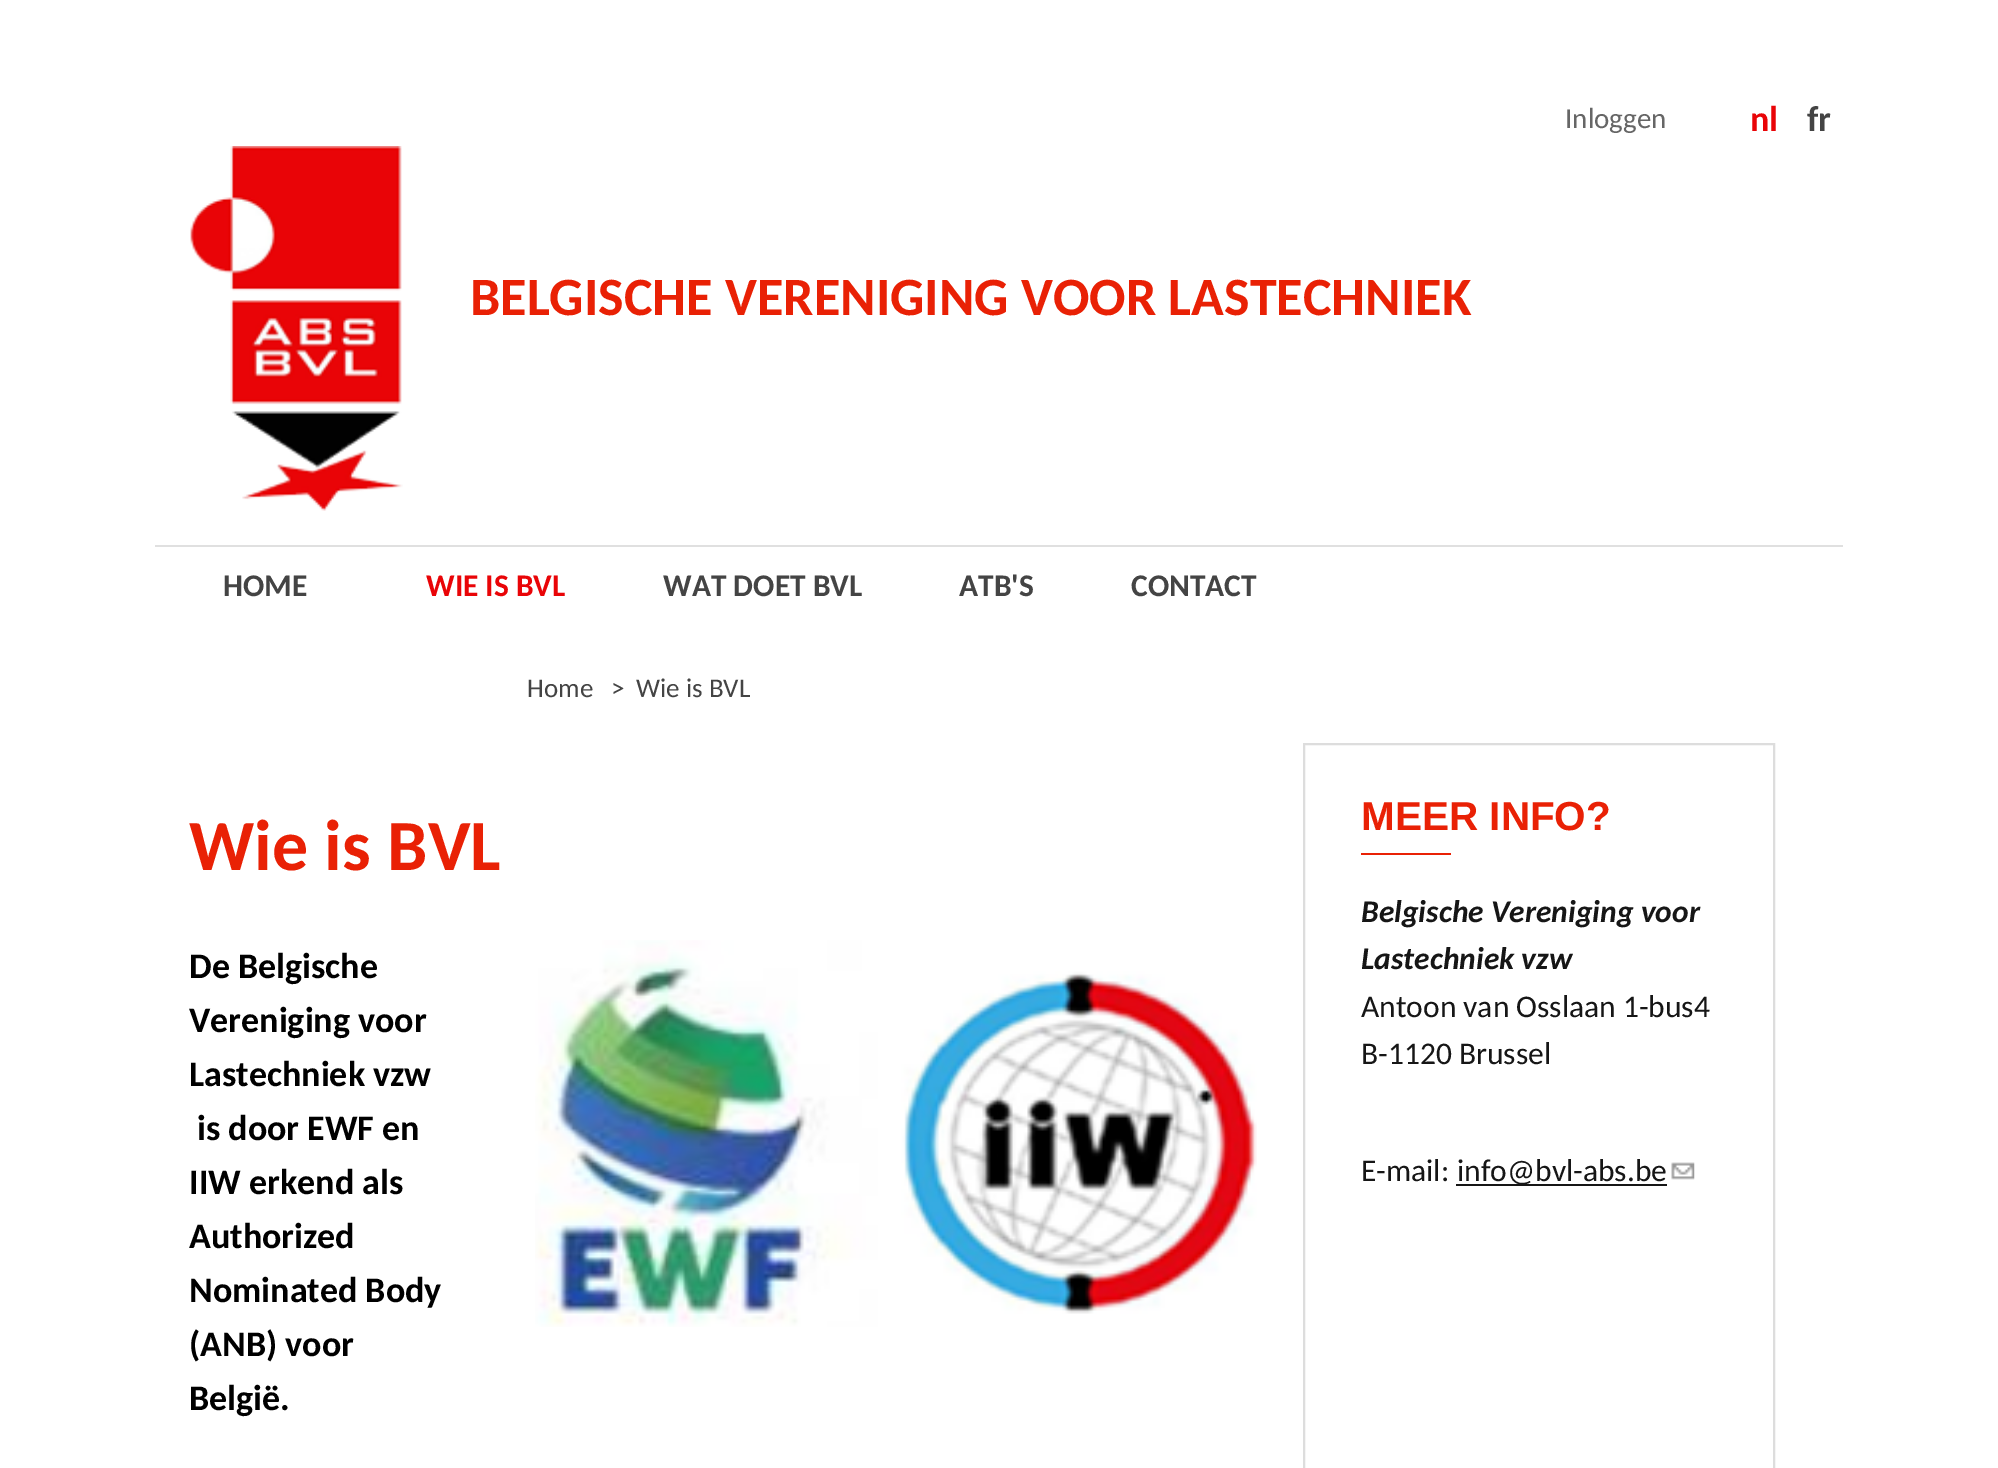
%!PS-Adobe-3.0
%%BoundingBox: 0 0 1998 1468
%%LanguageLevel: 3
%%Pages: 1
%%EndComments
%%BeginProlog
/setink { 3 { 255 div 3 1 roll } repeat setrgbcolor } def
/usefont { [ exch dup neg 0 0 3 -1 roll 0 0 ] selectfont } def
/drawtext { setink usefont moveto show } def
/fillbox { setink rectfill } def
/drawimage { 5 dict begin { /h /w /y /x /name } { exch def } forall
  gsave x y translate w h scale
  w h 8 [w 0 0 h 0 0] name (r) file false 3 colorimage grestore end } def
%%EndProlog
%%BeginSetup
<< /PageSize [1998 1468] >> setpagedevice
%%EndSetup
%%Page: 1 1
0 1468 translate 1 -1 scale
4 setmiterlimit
0 0 1998 1468 255 255 255 fillbox
(assets/img1.rgb) 190 146 213 365 drawimage
(Inloggen) 1565 128 /Carlito-Regular 29 102 102 102 drawtext
(nl) 1750 131 /Carlito-Bold 36 233 4 7 drawtext
(fr) 1807 131 /Carlito-Bold 36 68 68 68 drawtext
(BELGISCHE VERENIGING VOOR LASTECHNIEK) 470 315 /Carlito-Bold 54 233 33 5 drawtext
155 545 1688 2 224 224 224 fillbox
(HOME) 223 596 /Carlito-Bold 31.5 68 68 68 drawtext
(WIE IS BVL) 426 596 /Carlito-Bold 31.5 233 4 7 drawtext
(WAT DOET BVL) 663 596 /Carlito-Bold 31.5 68 68 68 drawtext
(ATB'S) 959 596 /Carlito-Bold 31.5 68 68 68 drawtext
(CONTACT) 1131 596 /Carlito-Bold 31.5 68 68 68 drawtext
(Home) 527 697 /Carlito-Regular 27 68 68 68 drawtext
(>) 611 697 /Carlito-Regular 27 68 68 68 drawtext
(Wie is BVL) 636 697 /Carlito-Regular 27 68 68 68 drawtext
(Wie is BVL) 189 870 /Carlito-Bold 72 233 33 5 drawtext
(De Belgische) 189 978 /Carlito-Bold 36 0 0 0 drawtext
(Vereniging voor) 189 1032 /Carlito-Bold 36 0 0 0 drawtext
(Lastechniek vzw) 189 1086 /Carlito-Bold 36 0 0 0 drawtext
(is door EWF en) 197 1140 /Carlito-Bold 36 0 0 0 drawtext
(IIW erkend als) 189 1194 /Carlito-Bold 36 0 0 0 drawtext
(Authorized) 189 1248 /Carlito-Bold 36 0 0 0 drawtext
(Nominated Body) 189 1302 /Carlito-Bold 36 0 0 0 drawtext
(\(ANB\) voor) 189 1356 /Carlito-Bold 36 0 0 0 drawtext
(België.) 189 1410 /Carlito-Bold 36 0 0 0 drawtext
(assets/img2.rgb) 535 940 722 387 drawimage
221 221 221 setink
2 setlinewidth
1304 744 470 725 rectstroke
(MEER INFO?) 1361 830 /LiberationSans-Bold 40.5 233 33 5 drawtext
1361 853 90 2 233 33 5 fillbox
(Belgische Vereniging voor) 1361 922 /Carlito-BoldItalic 31.5 22 22 22 drawtext
(Lastechniek vzw) 1361 969 /Carlito-BoldItalic 31.5 22 22 22 drawtext
(Antoon van Osslaan 1-bus4) 1361 1017 /Carlito-Regular 31.5 22 22 22 drawtext
(B-1120 Brussel) 1361 1064 /Carlito-Regular 31.5 22 22 22 drawtext
(E-mail:) 1361 1181 /Carlito-Regular 31.5 22 22 22 drawtext
1456 1184 211 2 22 22 22 fillbox
(info@bvl-abs.be) 1457 1181 /Carlito-Regular 31.5 22 22 22 drawtext
(assets/img3.rgb) 1671 1162 24 18 drawimage
showpage
%%EOF
